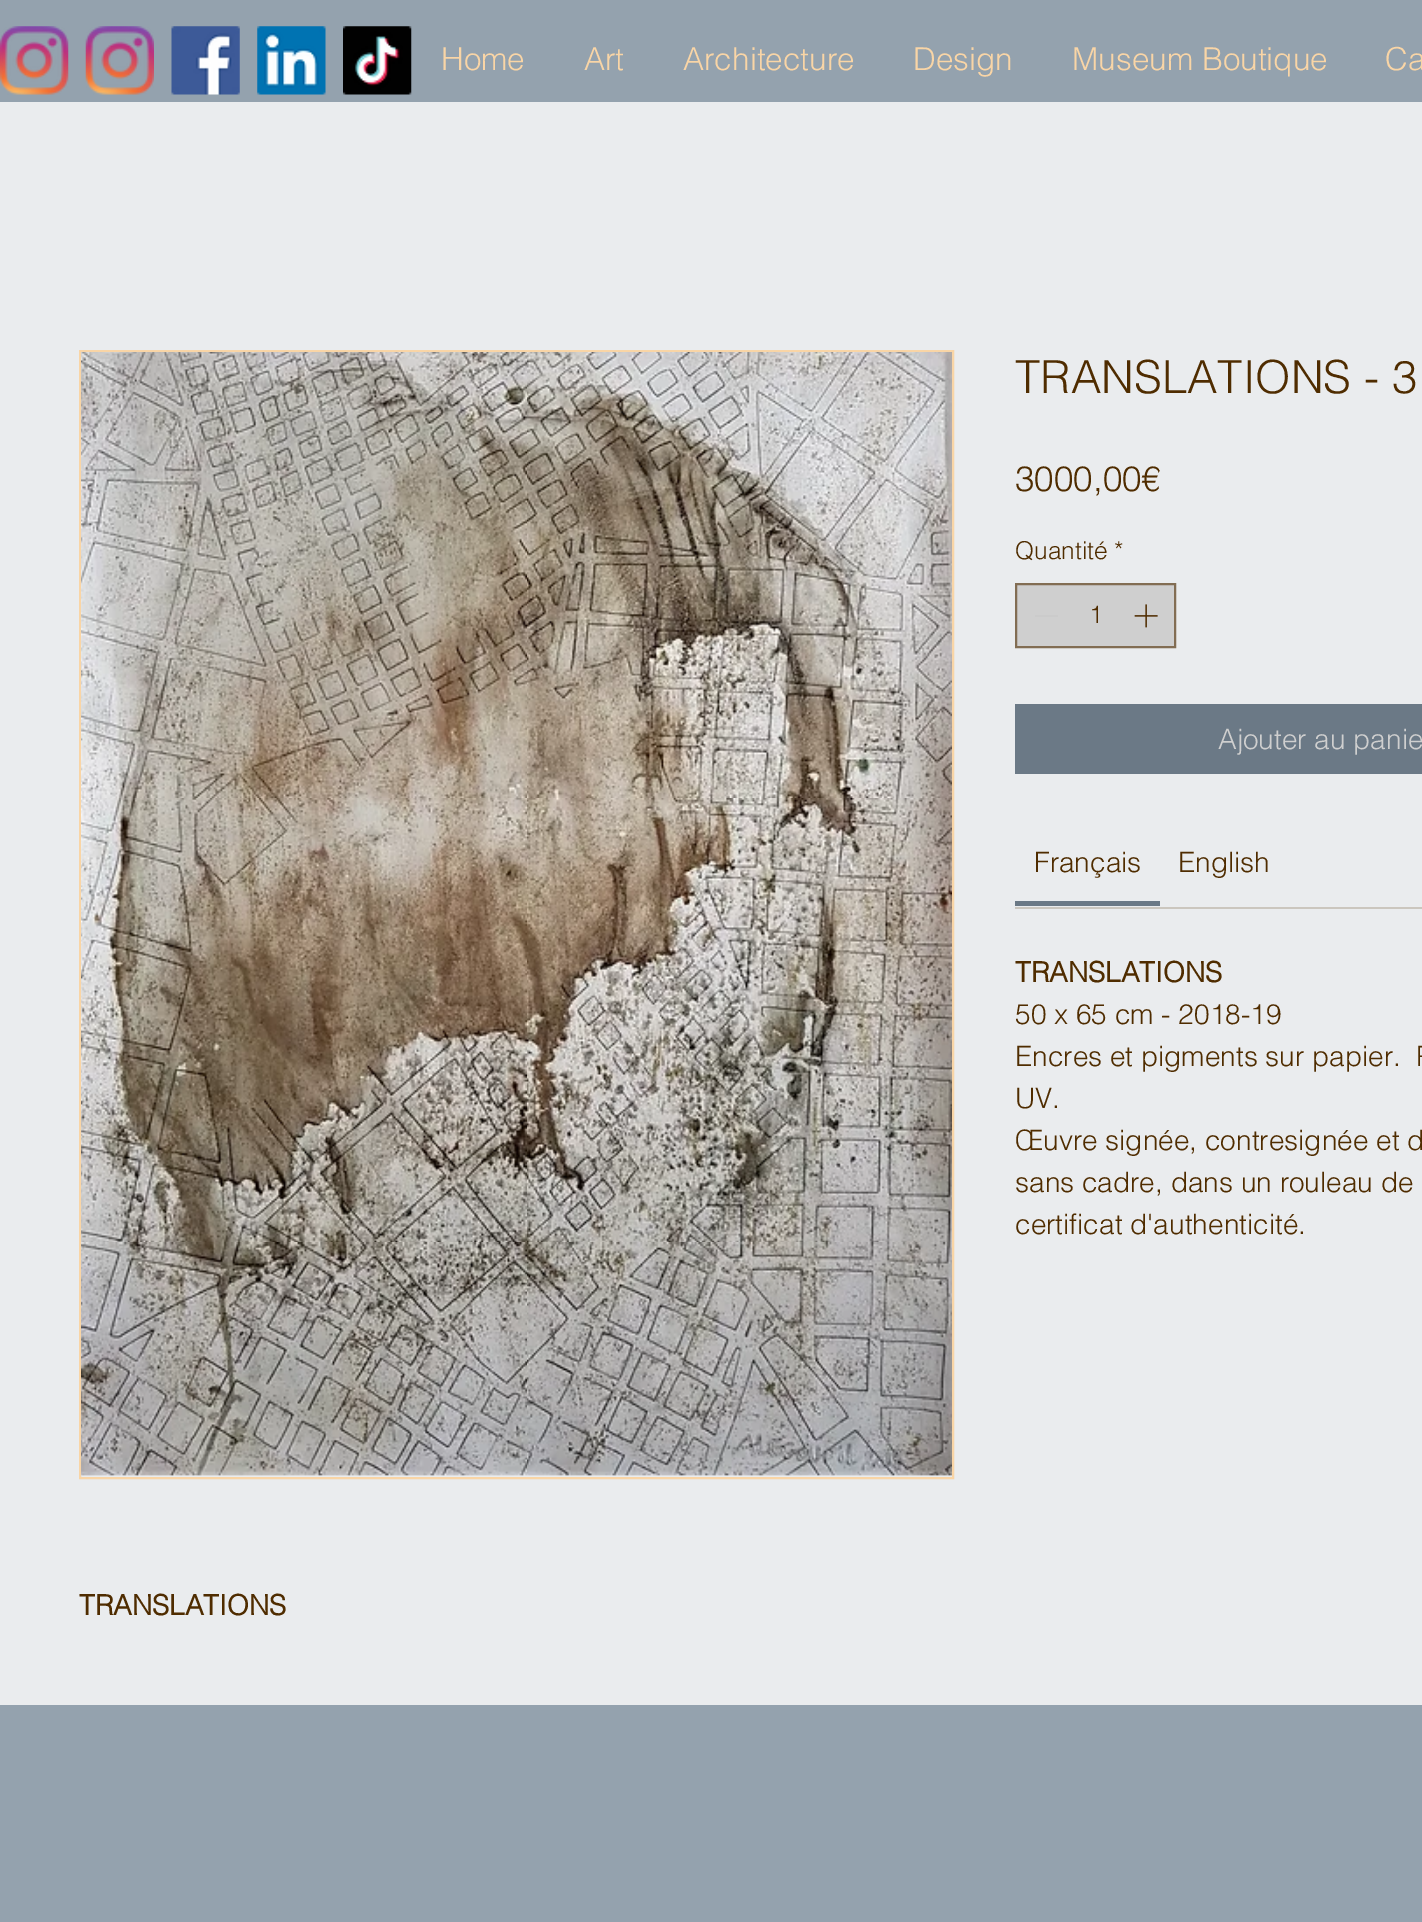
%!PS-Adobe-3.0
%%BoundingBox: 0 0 1422 1922
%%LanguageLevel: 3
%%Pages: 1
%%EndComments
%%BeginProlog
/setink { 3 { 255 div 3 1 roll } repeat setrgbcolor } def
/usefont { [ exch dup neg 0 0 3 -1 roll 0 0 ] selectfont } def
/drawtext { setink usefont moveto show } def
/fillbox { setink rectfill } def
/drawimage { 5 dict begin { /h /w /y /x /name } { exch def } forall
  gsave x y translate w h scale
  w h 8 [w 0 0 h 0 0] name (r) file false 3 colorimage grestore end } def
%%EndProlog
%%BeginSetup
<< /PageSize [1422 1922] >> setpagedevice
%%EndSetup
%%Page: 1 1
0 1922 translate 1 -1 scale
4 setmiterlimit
0 0 1422 1922 148 162 174 fillbox
(assets/img1.rgb) 0 26 69 69 drawimage
(assets/img2.rgb) 85 26 69 69 drawimage
(assets/img3.rgb) 171 26 69 69 drawimage
(assets/img4.rgb) 257 26 69 69 drawimage
(assets/img5.rgb) 343 26 69 69 drawimage
(Home) 441 70 /helvetica-Light 31.5 249 213 166 drawtext
(Art) 584 70 /helvetica-Light 31.5 249 213 166 drawtext
(Architecture) 683 70 /helvetica-Light 31.5 249 213 166 drawtext
(Design) 913 70 /helvetica-Light 31.5 249 213 166 drawtext
(Museum Boutique) 1072 70 /helvetica-Light 31.5 249 213 166 drawtext
(Ca) 1385 70 /helvetica-Light 31.5 249 213 166 drawtext
0 102 1422 1603 234 236 238 fillbox
(TRANSLATIONS - 3) 1015 393 /helvetica-Light 45.5 79 44 0 drawtext
(3 000,00€) 1015 491 /helvetica-Light 35 79 44 0 drawtext
(Quantité *) 1015 559 /helvetica-Light 24.5 79 44 0 drawtext
207 207 207 setink
1016 584 moveto 1175 584 lineto 1175 647 lineto 1016 647 lineto closepath gsave fill grestore
130 109 83 setink
2 setlinewidth
stroke
1035 615 23 2 203 203 203 fillbox
(1) 1089 623 /helvetica-Light 24.5 79 44 0 drawtext
(assets/img6.rgb) 1134 604 24 24 drawimage
1015 704 407 70 107 121 134 fillbox
(Ajouter au panie) 1218 749 /helvetica-Light 28 207 207 207 drawtext
1015 907 407 2 203 198 190 fillbox
1015 901 145 5 107 121 134 fillbox
(Français) 1034 872 /helvetica-Light 28 79 44 0 drawtext
(English) 1178 872 /helvetica-Light 28 79 44 0 drawtext
(TRANSLATIONS) 1015 982 /helvetica-Bold 28 79 44 0 drawtext
(50 x 65 cm - 2018-19) 1015 1024 /helvetica-Light 28 79 44 0 drawtext
(Encres et pigments sur papier.  P) 1015 1066 /helvetica-Light 28 79 44 0 drawtext
(UV.) 1015 1108 /helvetica-Light 28 79 44 0 drawtext
(Œuvre signée, contresignée et d) 1015 1150 /helvetica-Light 28 79 44 0 drawtext
(sans cadre, dans un rouleau de) 1015 1192 /helvetica-Light 28 79 44 0 drawtext
(certificat d'authenticité.) 1015 1234 /helvetica-Light 28 79 44 0 drawtext
249 213 166 setink
80 351 873 1127 rectstroke
(assets/img7.rgb) 81 352 871 1124 drawimage
(TRANSLATIONS) 79 1615 /helvetica-Bold 28 79 44 0 drawtext
showpage
%%EOF
